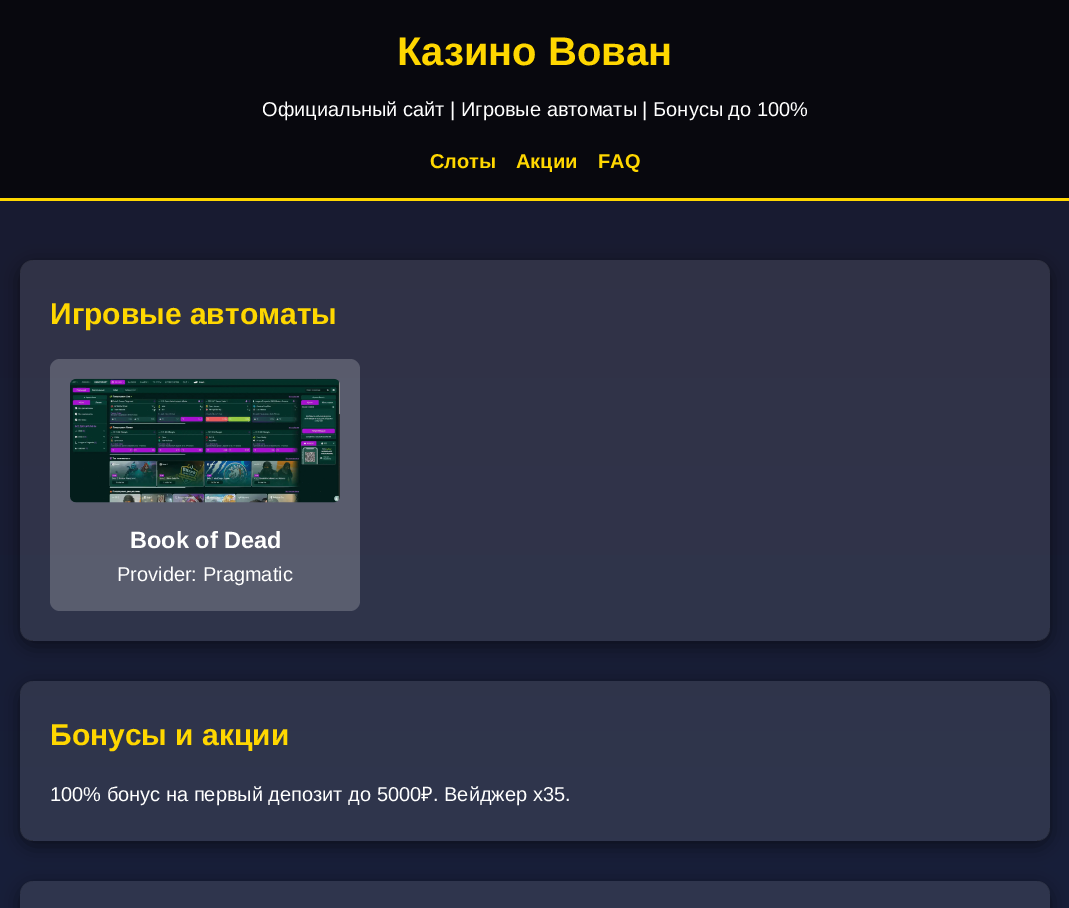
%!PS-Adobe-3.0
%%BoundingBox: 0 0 1069 908
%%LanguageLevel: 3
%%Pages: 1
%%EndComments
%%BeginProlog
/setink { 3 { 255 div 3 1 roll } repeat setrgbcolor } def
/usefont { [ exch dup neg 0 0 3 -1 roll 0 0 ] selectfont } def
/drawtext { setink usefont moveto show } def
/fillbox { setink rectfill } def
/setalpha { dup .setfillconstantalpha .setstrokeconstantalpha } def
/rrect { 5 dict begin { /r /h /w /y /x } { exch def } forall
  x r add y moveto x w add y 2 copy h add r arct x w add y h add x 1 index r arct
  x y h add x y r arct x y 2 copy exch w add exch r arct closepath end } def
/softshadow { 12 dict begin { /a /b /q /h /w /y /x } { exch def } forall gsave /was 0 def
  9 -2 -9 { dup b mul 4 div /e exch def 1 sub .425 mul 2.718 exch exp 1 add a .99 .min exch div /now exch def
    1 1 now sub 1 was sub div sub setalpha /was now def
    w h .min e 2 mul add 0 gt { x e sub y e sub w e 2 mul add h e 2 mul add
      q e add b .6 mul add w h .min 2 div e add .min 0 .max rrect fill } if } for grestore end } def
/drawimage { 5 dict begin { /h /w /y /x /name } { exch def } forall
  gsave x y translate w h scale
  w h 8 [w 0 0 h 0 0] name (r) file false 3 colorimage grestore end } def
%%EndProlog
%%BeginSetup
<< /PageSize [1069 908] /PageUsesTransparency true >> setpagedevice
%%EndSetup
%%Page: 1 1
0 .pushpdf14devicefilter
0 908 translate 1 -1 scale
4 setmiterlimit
0 0 1069 908 255 255 255 fillbox
gsave 0 201 moveto 1069 201 lineto 1069 908 lineto 0 908 lineto closepath clip newpath
<< /ShadingType 2 /ColorSpace /DeviceRGB /Coords [535 0 535 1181] /Extend [true true] /Function << /FunctionType 2 /Domain [0 1] /C0 [0.102 0.102 0.18] /C1 [0.086 0.129 0.243] /N 1 >> >> shfill grestore
gsave 0 0 moveto 1069 0 lineto 1069 198 lineto 0 198 lineto closepath clip newpath
<< /ShadingType 2 /ColorSpace /DeviceRGB /Coords [535 0 535 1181] /Extend [true true] /Function << /FunctionType 2 /Domain [0 1] /C0 [0.031 0.031 0.055] /C1 [0.027 0.039 0.075] /N 1 >> >> shfill grestore
0 198 1069 3 255 215 0 fillbox
(Казино Вован) 397 65 /LiberationSans-Bold 40 255 215 0 drawtext
(Официальный сайт | Игровые автоматы | Бонусы до 100%) 262 116 /LiberationSans-Regular 20 255 255 255 drawtext
(Слоты) 430 168 /LiberationSans-Bold 20 255 215 0 drawtext
(Акции) 516 168 /LiberationSans-Bold 20 255 215 0 drawtext
(FAQ) 598 168 /LiberationSans-Bold 20 255 215 0 drawtext
gsave
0 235 moveto 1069 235 lineto 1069 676 lineto 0 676 lineto closepath 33 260 moveto 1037 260 lineto 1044 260 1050 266 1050 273 curveto 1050 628 lineto 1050 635 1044 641 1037 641 curveto 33 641 lineto 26 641 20 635 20 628 curveto 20 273 lineto 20 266 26 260 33 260 curveto closepath eoclip newpath
0 0 0 setink
20 265 1030 381 13 9.5 0.5 softshadow
grestore
0.1 setalpha
255 255 255 setink
20 260 1030 381 13 rrect fill
1 setalpha
(Игровые автоматы) 50 324 /LiberationSans-Bold 30 255 215 0 drawtext
0.2 setalpha
255 255 255 setink
50 359 310 252 10 rrect fill
1 setalpha
(assets/img1.rgb) 70 378 270 125 drawimage
(Book of Dead) 130 548 /LiberationSans-Bold 23.5 255 255 255 drawtext
(Provider: Pragmatic) 117 581 /LiberationSans-Regular 20 255 255 255 drawtext
gsave
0 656 moveto 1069 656 lineto 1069 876 lineto 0 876 lineto closepath 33 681 moveto 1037 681 lineto 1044 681 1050 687 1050 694 curveto 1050 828 lineto 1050 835 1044 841 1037 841 curveto 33 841 lineto 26 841 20 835 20 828 curveto 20 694 lineto 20 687 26 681 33 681 curveto closepath eoclip newpath
0 0 0 setink
20 686 1030 160 13 9.5 0.5 softshadow
grestore
0.1 setalpha
20 681 1030 160 13 rrect fill
1 setalpha
(Бонусы и акции) 50 745 /LiberationSans-Bold 30 255 215 0 drawtext
(100% бонус на первый депозит до 5000) 50 801 /LiberationSans-Regular 20 255 255 255 drawtext
(₽) 421 801 /NotoSans-Regular 20 255 255 255 drawtext
(. Вейджер x35.) 433 801 /LiberationSans-Regular 20 255 255 255 drawtext
gsave
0 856 moveto 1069 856 lineto 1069 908 lineto 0 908 lineto closepath 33 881 moveto 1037 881 lineto 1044 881 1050 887 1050 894 curveto 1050 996 lineto 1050 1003 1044 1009 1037 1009 curveto 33 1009 lineto 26 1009 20 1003 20 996 curveto 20 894 lineto 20 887 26 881 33 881 curveto closepath eoclip newpath
0 0 0 setink
20 886 1030 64 13 9.5 0.5 softshadow
grestore
0.1 setalpha
20 881 1030 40 13 rrect fill
.poppdf14devicefilter showpage
%%EOF
